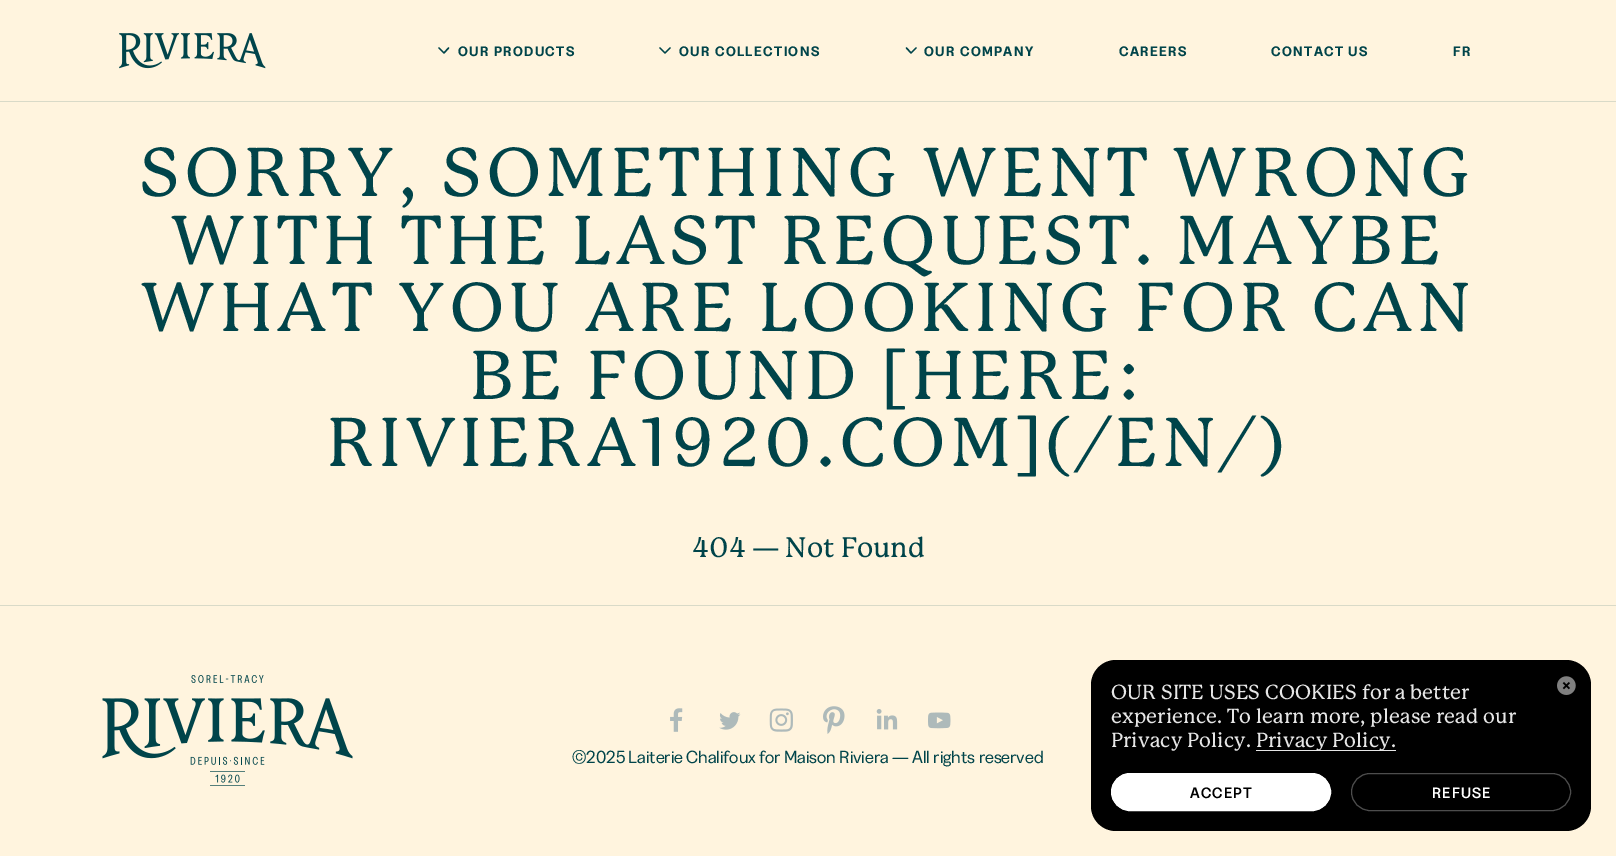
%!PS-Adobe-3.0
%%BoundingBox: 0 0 1616 856
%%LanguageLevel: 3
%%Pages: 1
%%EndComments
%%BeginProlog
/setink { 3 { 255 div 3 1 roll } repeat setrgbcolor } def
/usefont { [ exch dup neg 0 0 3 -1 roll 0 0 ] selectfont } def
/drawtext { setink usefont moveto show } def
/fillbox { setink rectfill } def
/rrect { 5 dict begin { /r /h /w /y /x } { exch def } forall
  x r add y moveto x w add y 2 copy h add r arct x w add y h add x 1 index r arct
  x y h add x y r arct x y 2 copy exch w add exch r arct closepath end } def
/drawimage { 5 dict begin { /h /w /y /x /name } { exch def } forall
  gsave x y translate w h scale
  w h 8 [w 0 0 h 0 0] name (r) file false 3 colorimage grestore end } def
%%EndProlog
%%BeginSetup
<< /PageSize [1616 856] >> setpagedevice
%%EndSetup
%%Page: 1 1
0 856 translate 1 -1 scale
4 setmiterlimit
0 0 1616 856 255 244 222 fillbox
0 101 1616 1 217 218 200 fillbox
(assets/img1.rgb) 119 33 147 36 drawimage
0 68 74 setink
1.4 setlinewidth
1 setlinecap
1 setlinejoin
448.5 48 moveto 444 53 lineto 439 48 lineto stroke
/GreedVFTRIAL-SemiBold 13.75 usefont
458 56 moveto 1.4 0 (OUR PRODUCTS) ashow
670 48 moveto 665 53 lineto 660 48 lineto stroke
679 56 moveto 1.4 0 (OUR COLLECTIONS) ashow
916 48 moveto 911 53 lineto 906.5 48 lineto stroke
924 56 moveto 1.4 0 (OUR COMPANY) ashow
1119 56 moveto 1.4 0 (CAREERS) ashow
1271 56 moveto 1.4 0 (CONTACT US) ashow
1453 56 moveto 1.4 0 (FR) ashow
/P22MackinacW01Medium-Medium 67.5 usefont
140 196 moveto 5.4 0 (SORRY, SOMETHING WENT WRONG) ashow
171 264 moveto 5.4 0 (WITH THE LAST REQUEST. MAYBE) ashow
141 331 moveto 5.4 0 (WHAT YOU ARE LOOKING FOR CAN) ashow
470 399 moveto 5.4 0 (BE FOUND [HERE:) ashow
327 466 moveto 5.4 0 (RIVIERA1920.COM]\(/EN/\)) ashow
(404 — Not Found) 692 557 /P22MackinacW01Medium-Medium 27.5 0 68 74 drawtext
0 605 1616 1 217 218 200 fillbox
(assets/img2.rgb) 102 675 251 111 drawimage
(assets/img3.rgb) 670 708 13 24 drawimage
(assets/img4.rgb) 719 712 22 18 drawimage
(assets/img5.rgb) 769 708 24 24 drawimage
(assets/img6.rgb) 823 706 22 28 drawimage
(assets/img7.rgb) 876 709 22 21 drawimage
(assets/img8.rgb) 928 712 23 17 drawimage
(©2025 Laiterie Chalifoux for Maison Riviera — All rights reserved) 572 763 /GreedVFTRIAL-Regular 17.5 0 68 74 drawtext
0 0 0 setink
1091 660 500 171 25 rrect fill
/P22MackinacW01Medium-Medium 20 usefont
230 230 230 setink
1111 699 moveto 0.2 0 (OUR SITE USES COOKIES for a better) ashow
1111 723 moveto 0.2 0 (experience. To learn more, please read our) ashow
1111 747 moveto 0.2 0 (Privacy Policy.) ashow
1256 750 140 1 230 230 230 fillbox
1256 747 moveto 0.2 0 (Privacy Policy.) ashow
(assets/img9.rgb) 1557 676 19 19 drawimage
255 255 255 setink
1111.5 773.5 219 37 18.5 rrect gsave fill grestore
1 setlinewidth
0 setlinecap
0 setlinejoin
stroke
/GreedVFTRIAL-Medium 15 usefont
0 0 0 setink
1190 798 moveto 1.25 0 (ACCEPT) ashow
77 77 77 setink
1351.5 773.5 219 37 18.5 rrect stroke
255 255 255 setink
1432 798 moveto 1.25 0 (REFUSE) ashow
showpage
%%EOF
